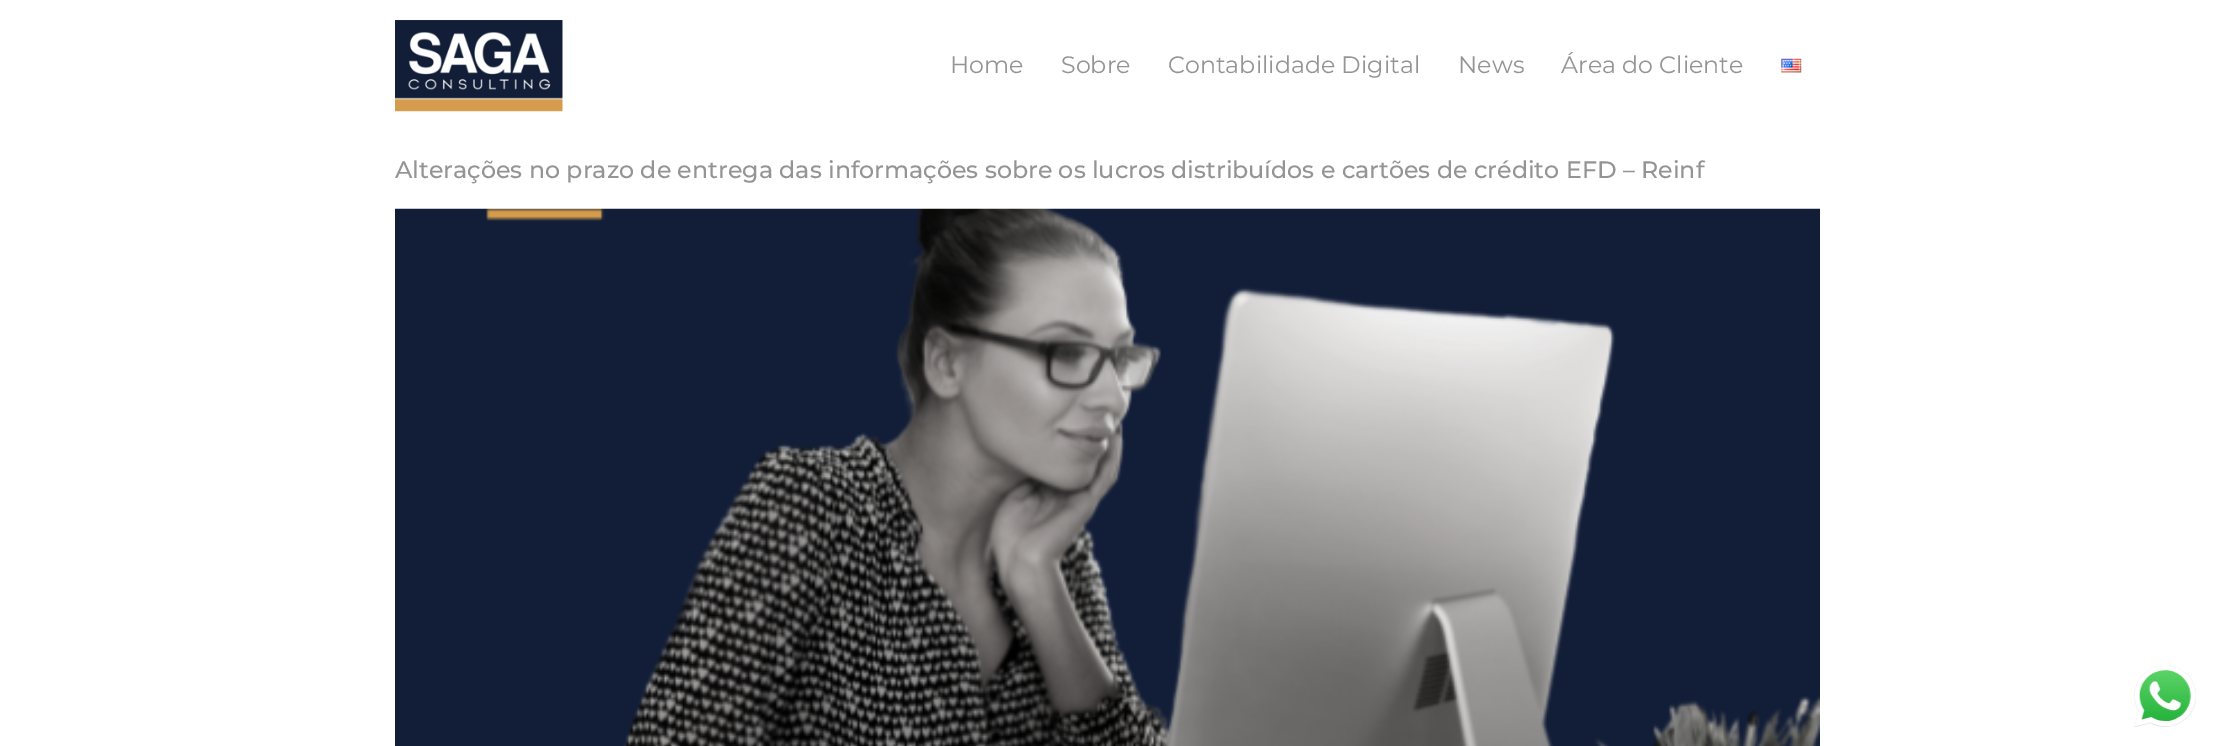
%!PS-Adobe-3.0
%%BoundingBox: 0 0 2214 746
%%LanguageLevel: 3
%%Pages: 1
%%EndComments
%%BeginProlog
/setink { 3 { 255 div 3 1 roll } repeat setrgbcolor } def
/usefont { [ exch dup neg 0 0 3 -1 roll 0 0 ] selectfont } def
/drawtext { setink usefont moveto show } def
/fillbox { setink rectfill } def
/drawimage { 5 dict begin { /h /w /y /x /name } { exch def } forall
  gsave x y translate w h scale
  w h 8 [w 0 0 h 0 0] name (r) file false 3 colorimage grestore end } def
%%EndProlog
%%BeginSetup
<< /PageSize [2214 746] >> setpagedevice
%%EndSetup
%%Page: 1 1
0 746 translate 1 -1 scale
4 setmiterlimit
0 0 2214 746 255 255 255 fillbox
(assets/img1.rgb) 395 20 168 92 drawimage
(Home) 950 73 /Montserrat-Regular 23.75 148 148 148 drawtext
(Sobre) 1061 73 /Montserrat-Regular 23.75 148 148 148 drawtext
(Contabilidade Digital) 1168 73 /Montserrat-Regular 23.75 148 148 148 drawtext
(News) 1458 73 /Montserrat-Regular 23.75 148 148 148 drawtext
(Área do Cliente) 1561 73 /Montserrat-Regular 23.75 148 148 148 drawtext
(assets/img2.rgb) 1781 58 21 15 drawimage
(Alterações no prazo de entrega das informações sobre os lucros distribuídos e cartões de crédito EFD – Reinf) 395 178 /Montserrat-Medium 23.75 148 148 148 drawtext
(assets/img3.rgb) 395 208 1425 538 drawimage
(assets/img4.rgb) 2134 665 63 62 drawimage
showpage
%%EOF
